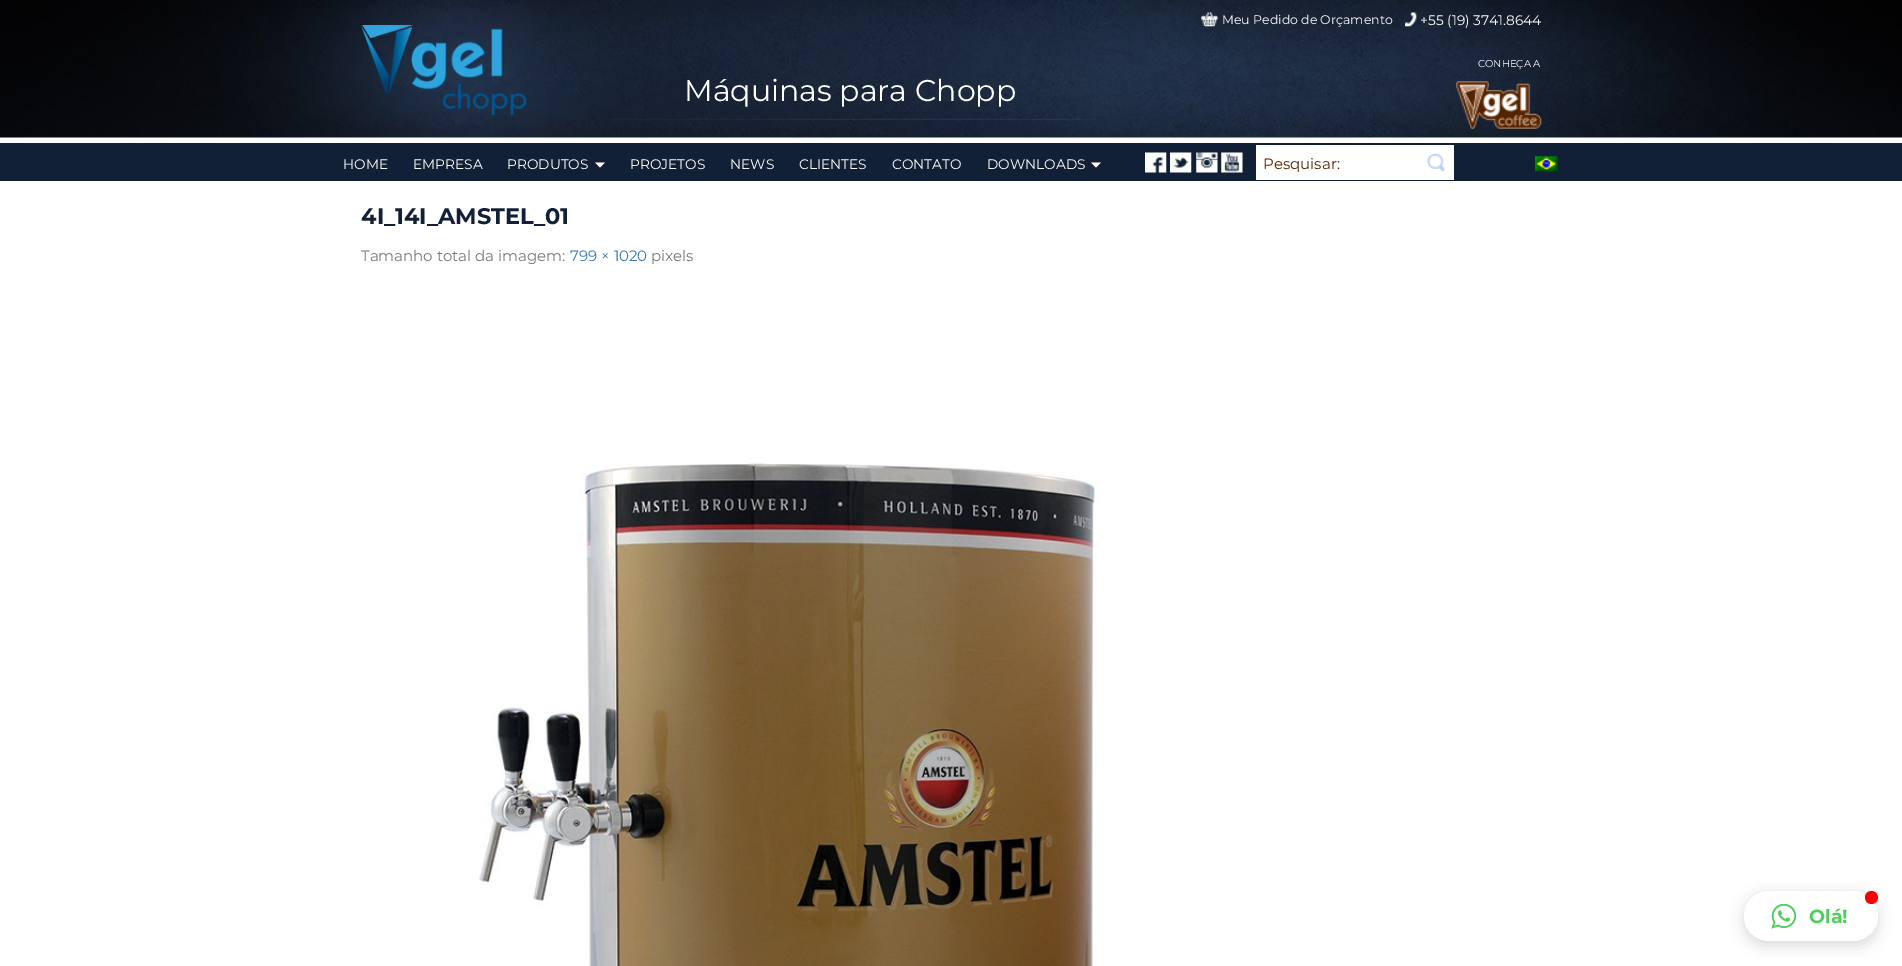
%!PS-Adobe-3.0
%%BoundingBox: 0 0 1902 966
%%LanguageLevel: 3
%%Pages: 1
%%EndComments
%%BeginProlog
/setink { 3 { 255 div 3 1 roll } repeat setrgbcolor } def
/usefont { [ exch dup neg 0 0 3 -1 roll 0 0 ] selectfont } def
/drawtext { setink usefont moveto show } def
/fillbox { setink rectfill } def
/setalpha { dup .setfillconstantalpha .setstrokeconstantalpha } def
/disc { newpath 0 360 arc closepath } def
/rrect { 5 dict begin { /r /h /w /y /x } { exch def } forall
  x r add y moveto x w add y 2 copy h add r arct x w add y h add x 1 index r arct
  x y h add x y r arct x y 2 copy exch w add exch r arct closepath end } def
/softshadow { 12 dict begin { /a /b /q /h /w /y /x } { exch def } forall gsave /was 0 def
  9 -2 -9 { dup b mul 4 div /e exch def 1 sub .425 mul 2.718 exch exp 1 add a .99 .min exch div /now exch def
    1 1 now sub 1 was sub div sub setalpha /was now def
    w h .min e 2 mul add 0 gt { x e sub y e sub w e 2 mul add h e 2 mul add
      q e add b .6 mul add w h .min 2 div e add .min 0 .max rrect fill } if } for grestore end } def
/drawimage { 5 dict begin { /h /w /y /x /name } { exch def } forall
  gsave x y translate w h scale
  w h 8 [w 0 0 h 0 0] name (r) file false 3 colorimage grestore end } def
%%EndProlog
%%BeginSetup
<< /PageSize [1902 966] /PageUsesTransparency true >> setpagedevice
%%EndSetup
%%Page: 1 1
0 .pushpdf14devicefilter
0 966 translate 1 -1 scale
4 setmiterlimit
0 0 1902 966 255 255 255 fillbox
(assets/img1.rgb) 0 0 1902 138 drawimage
(assets/img2.rgb) 361 25 166 90 drawimage
(assets/img3.rgb) 604 118 497 2 drawimage
(Máquinas para Chopp) 684 101 /Montserrat-Regular 30 255 255 255 drawtext
(assets/img4.rgb) 1201 12 17 15 drawimage
(Meu Pedido de Orçamento) 1222 24 /Montserrat-Regular 12.5 255 255 255 drawtext
(assets/img5.rgb) 1405 12 12 15 drawimage
(+55 \(19\) 3741.8644) 1420 25 /Montserrat-Regular 13.75 255 255 255 drawtext
(CONHEÇA A) 1478 67 /Montserrat-Regular 10 255 255 255 drawtext
(assets/img6.rgb) 1456 81 86 48 drawimage
0 143 1902 38 17 32 54 fillbox
(HOME) 343 169 /Montserrat-Regular 13.75 255 255 255 drawtext
(EMPRESA) 413 169 /Montserrat-Regular 13.75 255 255 255 drawtext
(PRODUTOS) 507 169 /Montserrat-Regular 13.75 255 255 255 drawtext
595 162.5 moveto 605 162.5 lineto 600 167.5 lineto closepath fill
(PROJETOS) 630 169 /Montserrat-Regular 13.75 255 255 255 drawtext
(NEWS) 730 169 /Montserrat-Regular 13.75 255 255 255 drawtext
(CLIENTES) 799 169 /Montserrat-Regular 13.75 255 255 255 drawtext
(CONTATO) 892 169 /Montserrat-Regular 13.75 255 255 255 drawtext
(DOWNLOADS) 987 169 /Montserrat-Regular 13.75 255 255 255 drawtext
1091 162.5 moveto 1101 162.5 lineto 1096 167.5 lineto closepath fill
(assets/img7.rgb) 1145 152 22 21 drawimage
(assets/img8.rgb) 1170 152 22 21 drawimage
(assets/img9.rgb) 1196 152 22 21 drawimage
(assets/img10.rgb) 1221 152 22 21 drawimage
1256 145 198 35 255 255 255 fillbox
(Pesquisar:) 1263 169 /Montserrat-Regular 15 84 36 0 drawtext
(assets/img11.rgb) 1427 153 18 19 drawimage
(assets/img12.rgb) 1535 156 23 16 drawimage
(4I_14I_AMSTEL_01) 361 224 /Montserrat-Bold 22.5 17 32 54 drawtext
(Tamanho total da imagem:) 361 261 /Montserrat-Regular 15 119 119 119 drawtext
(799 × 1020) 570 261 /Montserrat-Regular 15 51 122 183 drawtext
(pixels) 651 261 /Montserrat-Regular 15 119 119 119 drawtext
(assets/img13.rgb) 479 463 620 503 drawimage
0 0 0 setink
1744 895 134 50 25 7.5 0.15 softshadow
255 255 255 setink
1744 891 134 50 25 rrect fill
255 0 0 setink
1871.5 897.5 6.5 disc fill
(assets/img14.rgb) 1771 904 25 25 drawimage
(Olá!) 1809 923 /Montserrat-Bold 19 79 206 93 drawtext
.poppdf14devicefilter showpage
%%EOF
